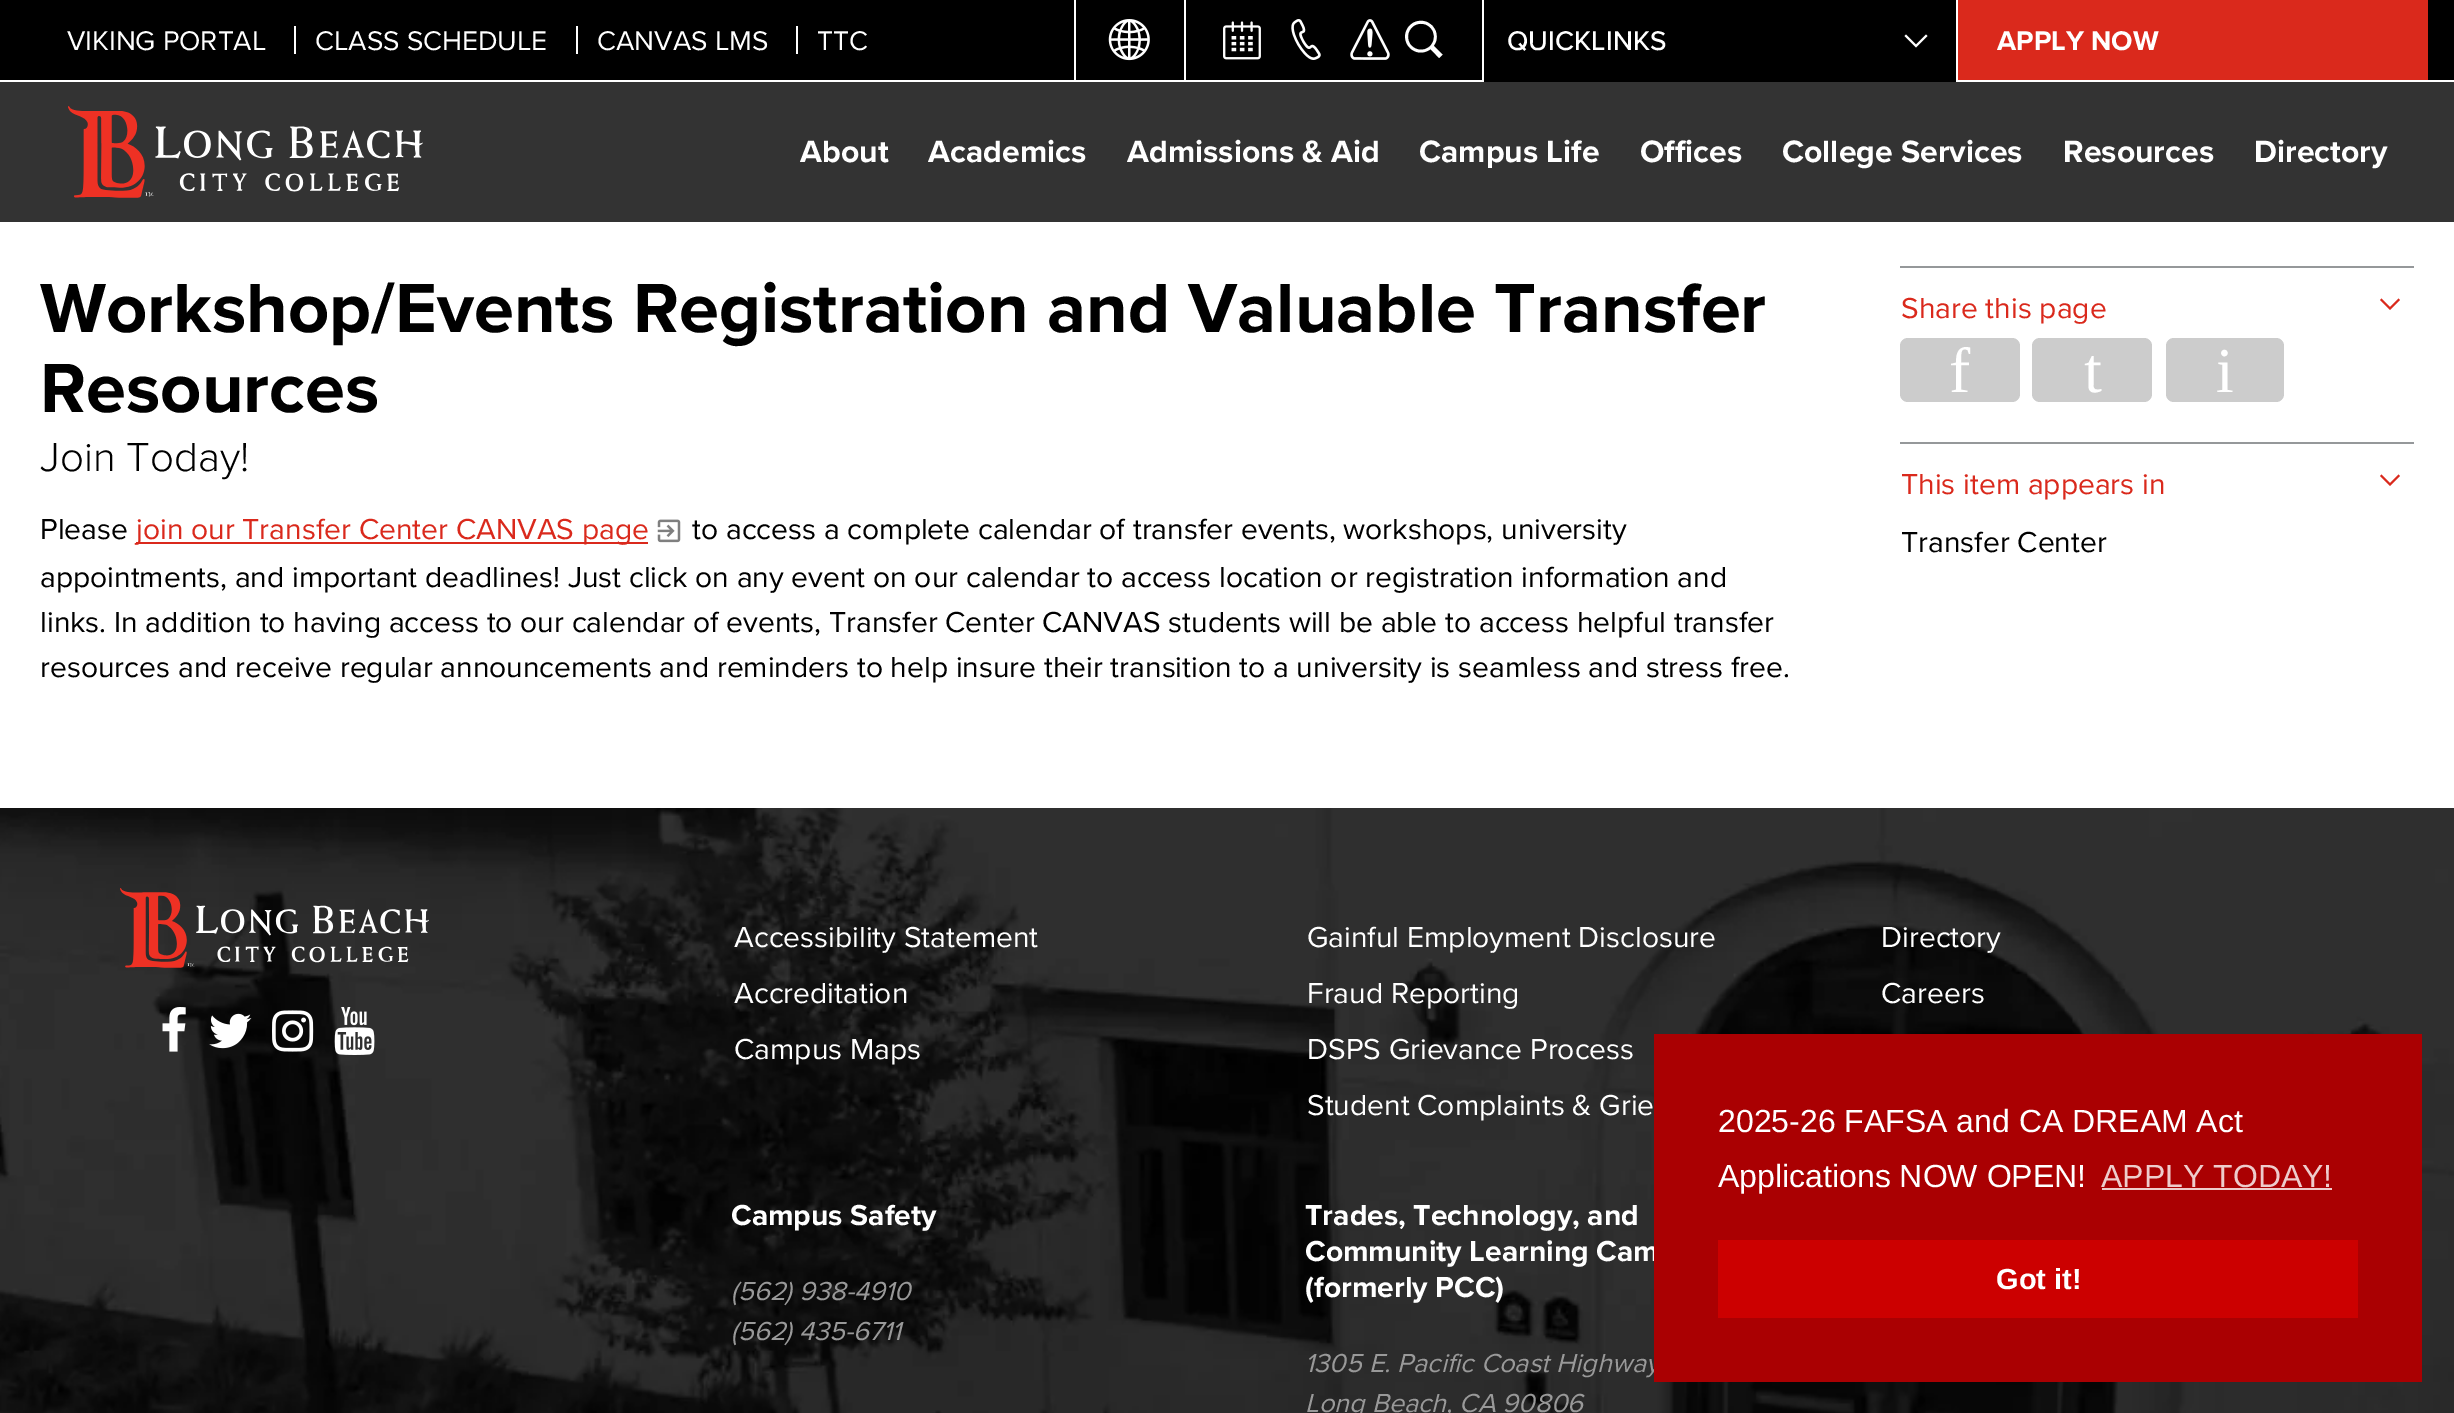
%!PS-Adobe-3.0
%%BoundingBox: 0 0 2454 1413
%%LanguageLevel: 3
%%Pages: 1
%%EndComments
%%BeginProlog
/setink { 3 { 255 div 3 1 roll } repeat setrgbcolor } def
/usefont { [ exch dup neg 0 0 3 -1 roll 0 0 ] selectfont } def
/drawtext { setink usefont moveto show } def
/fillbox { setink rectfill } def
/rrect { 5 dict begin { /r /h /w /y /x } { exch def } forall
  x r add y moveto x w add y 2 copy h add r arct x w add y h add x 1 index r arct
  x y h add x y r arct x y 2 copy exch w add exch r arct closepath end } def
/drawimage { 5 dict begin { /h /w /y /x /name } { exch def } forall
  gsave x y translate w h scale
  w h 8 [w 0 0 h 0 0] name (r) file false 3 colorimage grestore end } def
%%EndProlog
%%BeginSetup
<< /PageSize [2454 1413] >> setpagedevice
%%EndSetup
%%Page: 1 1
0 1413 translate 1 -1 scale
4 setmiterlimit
0 0 2454 1413 255 255 255 fillbox
0 82 2454 140 51 51 51 fillbox
0 0 2454 80 0 0 0 fillbox
1482 0 2 80 255 255 255 fillbox
1074 0 2 80 255 255 255 fillbox
1184 0 2 80 255 255 255 fillbox
(assets/img1.rgb) 1108 19 42 42 drawimage
(assets/img2.rgb) 1223 21 38 39 drawimage
(assets/img3.rgb) 1291 19 30 41 drawimage
(assets/img4.rgb) 1350 19 40 41 drawimage
(?) 1405 64 /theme-Regular 56 255 255 255 drawtext
(VIKING PORTAL) 67 50 /ProximaNova-Regular 28 255 255 255 drawtext
294 26 2 28 255 255 255 fillbox
(CLASS SCHEDULE) 315 50 /ProximaNova-Regular 28 255 255 255 drawtext
576 26 2 28 255 255 255 fillbox
(CANVAS LMS) 597 50 /ProximaNova-Regular 28 255 255 255 drawtext
796 26 2 28 255 255 255 fillbox
(TTC) 817 50 /ProximaNova-Regular 28 255 255 255 drawtext
1958 0 470 80 218 41 28 fillbox
1956 0 2 80 255 255 255 fillbox
(APPLY NOW) 1997 50 /ProximaNova-Bold 28 255 255 255 drawtext
1484 80 472 2 0 0 0 fillbox
(QUICKLINKS) 1507 50 /ProximaNova-Medium 28 255 255 255 drawtext
1916 47.5 moveto 1904.5 36 lineto 1906 34.5 lineto 1916 44.5 lineto 1926 34.5 lineto 1927.5 36 lineto closepath fill
(assets/img5.rgb) 68 106 355 92 drawimage
(About) 800 162 /ProximaNova-Bold 32 255 255 255 drawtext
(Academics) 928 162 /ProximaNova-Bold 32 255 255 255 drawtext
(Admissions & Aid) 1127 162 /ProximaNova-Bold 32 255 255 255 drawtext
(Campus Life) 1419 162 /ProximaNova-Bold 32 255 255 255 drawtext
(Offices) 1640 162 /ProximaNova-Bold 32 255 255 255 drawtext
(College Services) 1782 162 /ProximaNova-Bold 32 255 255 255 drawtext
(Resources) 2063 162 /ProximaNova-Bold 32 255 255 255 drawtext
(Directory) 2254 162 /ProximaNova-Bold 32 255 255 255 drawtext
(Workshop/Events Registration and Valuable Transfer) 40 332 /ProximaNova-Bold 72 0 0 0 drawtext
(Resources) 40 412 /ProximaNova-Bold 72 0 0 0 drawtext
(Join Today!) 40 471 /ProximaNova-Light 42 0 0 0 drawtext
(Please) 40 539 /ProximaNova-Regular 30 0 0 0 drawtext
136 542 512 2 218 41 28 fillbox
(join our Transfer Center CANVAS page) 136 539 /ProximaNova-Regular 30 218 41 28 drawtext
(assets/img6.rgb) 657 519 24 24 drawimage
(to access a complete calendar of transfer events, workshops, university) 692 539 /ProximaNova-Regular 30 0 0 0 drawtext
(appointments, and important deadlines! Just click on any event on our calendar to access location or registration information and) 40 587 /ProximaNova-Regular 30 0 0 0 drawtext
(links. In addition to having access to our calendar of events, Transfer Center CANVAS students will be able to access helpful transfer) 40 632 /ProximaNova-Regular 30 0 0 0 drawtext
(resources and receive regular announcements and reminders to help insure their transition to a university is seamless and stress free.) 40 677 /ProximaNova-Regular 30 0 0 0 drawtext
1900 266 514 2 149 152 154 fillbox
(Share this page) 1901 318 /ProximaNova-Regular 30 218 41 28 drawtext
2390 310 moveto 2380 300 lineto 2381.5 298.5 lineto 2390 307 lineto 2398.5 298.5 lineto 2400 300 lineto closepath fill
204 204 204 setink
1900 338 120 64 8 rrect fill
(f) 1949 392 /LiberationSerif-Regular 64 255 255 255 drawtext
204 204 204 setink
2032 338 120 64 8 rrect fill
(t) 2084 392 /LiberationSerif-Regular 64 255 255 255 drawtext
204 204 204 setink
2166 338 118 64 8 rrect fill
(i) 2216 392 /LiberationSerif-Regular 64 255 255 255 drawtext
1900 442 514 2 149 152 154 fillbox
(This item appears in) 1901 494 /ProximaNova-Regular 30 218 41 28 drawtext
2390 486 moveto 2380 476 lineto 2381.5 474.5 lineto 2390 483 lineto 2398.5 474.5 lineto 2400 476 lineto closepath fill
(Transfer Center) 1901 552 /ProximaNova-Regular 30 0 0 0 drawtext
(assets/img7.rgb) 0 808 2454 605 drawimage
(assets/img8.rgb) 120 888 309 80 drawimage
(Accessibility Statement) 734 947 /ProximaNova-Regular 30 255 255 255 drawtext
(Accreditation) 734 1003 /ProximaNova-Regular 30 255 255 255 drawtext
(Campus Maps) 734 1059 /ProximaNova-Regular 30 255 255 255 drawtext
(Gainful Employment Disclosure) 1307 947 /ProximaNova-Regular 30 255 255 255 drawtext
(Fraud Reporting) 1307 1003 /ProximaNova-Regular 30 255 255 255 drawtext
(DSPS Grievance Process) 1307 1059 /ProximaNova-Regular 30 255 255 255 drawtext
(Student Complaints & Grie) 1307 1115 /ProximaNova-Regular 30 255 255 255 drawtext
(Directory) 1881 947 /ProximaNova-Regular 30 255 255 255 drawtext
(Careers) 1881 1003 /ProximaNova-Regular 30 255 255 255 drawtext
(assets/img9.rgb) 162 1007 24 45 drawimage
(assets/img10.rgb) 209 1013 43 36 drawimage
(assets/img11.rgb) 272 1010 42 42 drawimage
(assets/img12.rgb) 334 1007 41 48 drawimage
(Campus Safety) 731 1225 /ProximaNova-Bold 30 255 255 255 drawtext
(\(562\) 938-4910) 731 1300 /ProximaNova-Italic 27 153 153 153 drawtext
(\(562\) 435-6711) 731 1340 /ProximaNova-Italic 27 153 153 153 drawtext
(Trades, Technology, and) 1305 1225 /ProximaNova-Bold 30 255 255 255 drawtext
(Community Learning Cam) 1305 1261 /ProximaNova-Bold 30 255 255 255 drawtext
(\(formerly PCC\)) 1305 1297 /ProximaNova-Bold 30 255 255 255 drawtext
(1305 E. Pacific Coast Highway) 1305 1372 /ProximaNova-Italic 27 153 153 153 drawtext
(Long Beach, CA 90806) 1305 1412 /ProximaNova-Italic 27 153 153 153 drawtext
1654 1034 768 348 170 0 2 fillbox
(2025-26 FAFSA and CA DREAM Act) 1718 1132 /LiberationSans-Regular 32 255 255 255 drawtext
(Applications NOW OPEN!) 1718 1187 /LiberationSans-Regular 32 255 255 255 drawtext
(APPLY TODAY!) 2101 1187 /LiberationSans-Regular 32 238 204 204 drawtext
2102 1188 230 2 238 204 204 fillbox
1718 1240 640 78 204 0 0 fillbox
(Got it!) 1996 1289 /LiberationSans-Bold 29 255 255 255 drawtext
showpage
%%EOF
